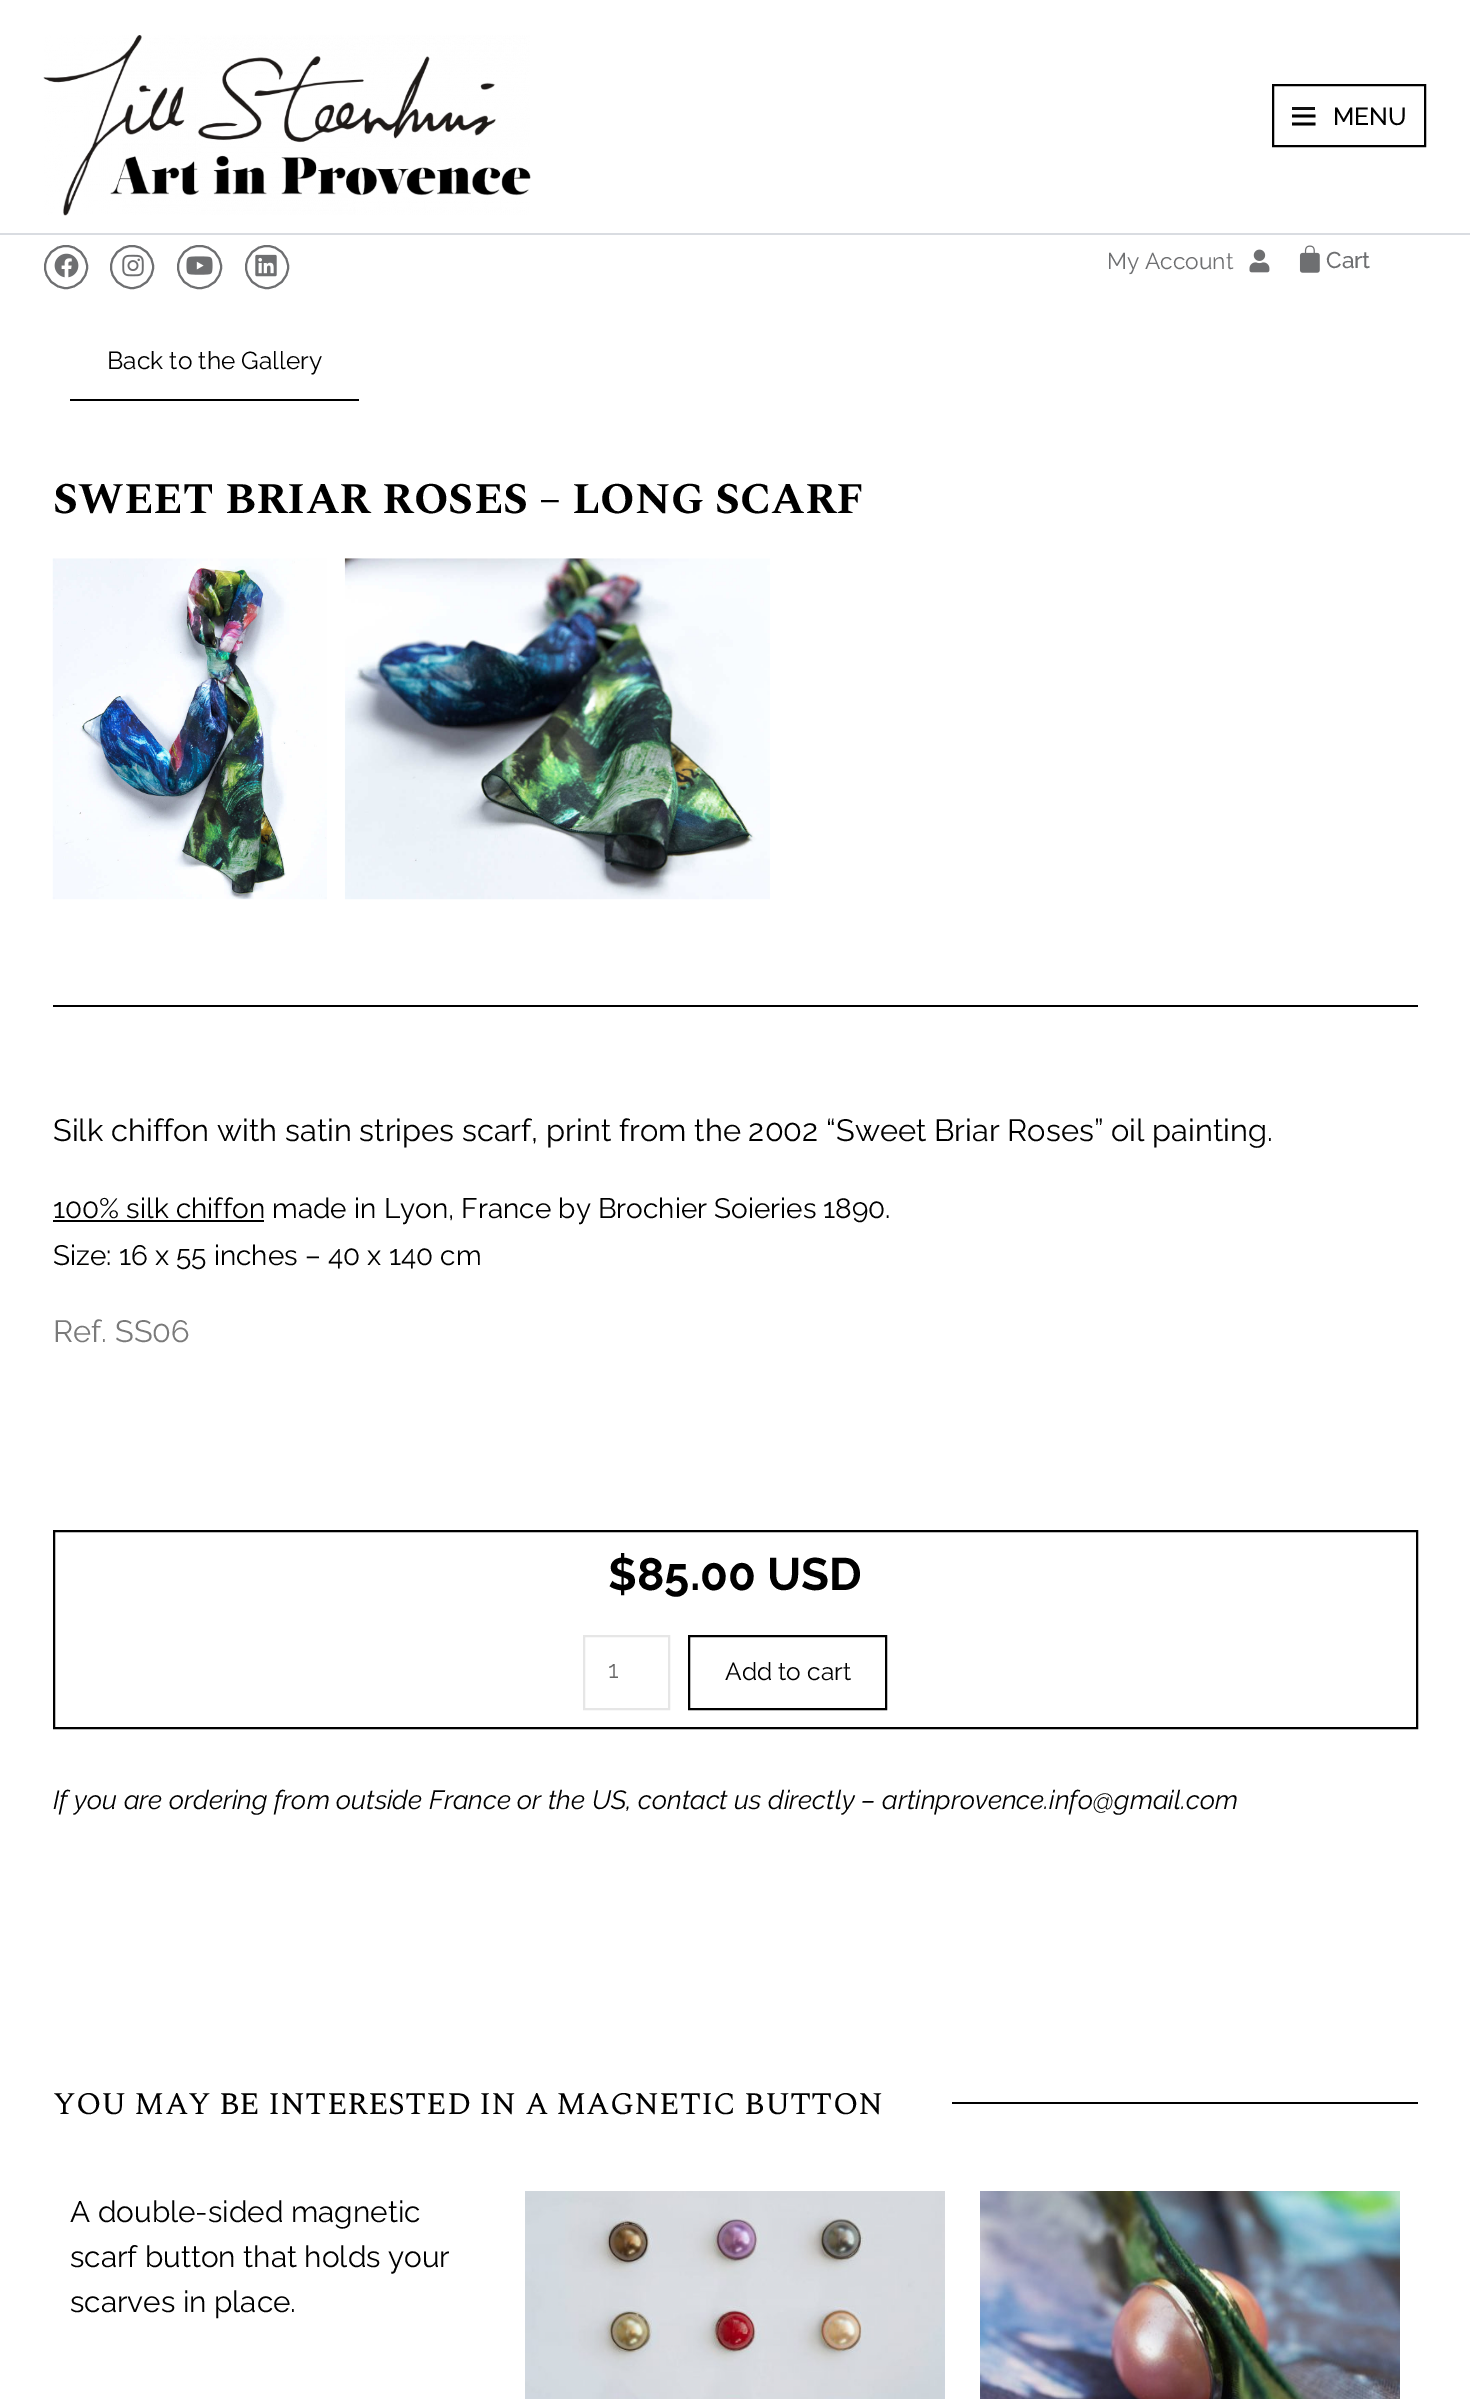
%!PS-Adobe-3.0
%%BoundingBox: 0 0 1470 2399
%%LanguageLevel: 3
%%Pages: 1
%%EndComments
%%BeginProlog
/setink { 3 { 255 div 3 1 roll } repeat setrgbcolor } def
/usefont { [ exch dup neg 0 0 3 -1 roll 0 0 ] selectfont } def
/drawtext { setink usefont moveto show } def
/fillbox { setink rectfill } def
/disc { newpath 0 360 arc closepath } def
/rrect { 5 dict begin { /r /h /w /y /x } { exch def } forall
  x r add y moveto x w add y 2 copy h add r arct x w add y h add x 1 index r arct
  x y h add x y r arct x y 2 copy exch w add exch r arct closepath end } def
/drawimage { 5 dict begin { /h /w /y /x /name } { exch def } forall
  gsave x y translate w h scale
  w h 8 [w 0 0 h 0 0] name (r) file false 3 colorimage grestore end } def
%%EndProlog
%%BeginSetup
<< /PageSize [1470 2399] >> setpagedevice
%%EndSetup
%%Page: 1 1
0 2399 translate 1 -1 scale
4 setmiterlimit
0 0 1470 2399 217 220 225 fillbox
0 0 1470 233 255 255 255 fillbox
(assets/img1.rgb) 43 35 488 181 drawimage
0 0 0 setink
2 setlinewidth
1273 85 152 61 rectstroke
1292 107 23 3 17 17 17 fillbox
0 0 0 setink
2.8 setlinewidth
2 setlinecap
1 setlinejoin
1293.5 116 moveto 1314 116 lineto 1293.5 124 moveto 1314 124 lineto stroke
(MENU) 1333 125 /Raleway-Medium 24.5 0 0 0 drawtext
0 235 1470 89 255 255 255 fillbox
110 111 113 setink
2 setlinewidth
0 setlinecap
0 setlinejoin
66 267 21 disc stroke
(assets/img2.rgb) 54 253 25 25 drawimage
132 267 21 disc stroke
(assets/img3.rgb) 122 254 22 23 drawimage
178 246 43 42 21 rrect stroke
(assets/img4.rgb) 186 256 27 19 drawimage
267 267 21 disc stroke
(assets/img5.rgb) 255 254 22 23 drawimage
(My Account) 1107 269 /Raleway-Regular 22.75 110 111 113 drawtext
(assets/img6.rgb) 1249 249 21 24 drawimage
(assets/img7.rgb) 1299 245 21 28 drawimage
(Cart) 1326 268 /Raleway-Medium 22.75 110 111 113 drawtext
0 1950 1470 449 255 255 255 fillbox
0 324 1470 1626 255 255 255 fillbox
70 399 289 2 0 0 0 fillbox
(Back to the Gallery) 107 369 /Raleway-Regular 24.5 0 0 0 drawtext
(SWEET BRIAR ROSES – LONG SCARF) 53 513 /Spectral-Bold 43.75 0 0 0 drawtext
(assets/img8.rgb) 52 558 275 342 drawimage
(assets/img9.rgb) 344 558 426 342 drawimage
53 1005 1365 2 0 0 0 fillbox
(Silk chiffon with satin stripes scarf, print from the 2002 “Sweet Briar Roses” oil painting.) 53 1141 /Raleway-Regular 30.8 0 0 0 drawtext
53 1220 211 2 0 0 0 fillbox
(100% silk chiffon made in Lyon, France by Brochier Soieries 1890.) 53 1218 /Raleway-Regular 28 0 0 0 drawtext
(Size: 16 x 55 inches – 40 x 140 cm) 53 1265 /Raleway-Regular 28 0 0 0 drawtext
(Ref. SS06) 53 1342 /Raleway-Regular 30.8 122 122 122 drawtext
0 0 0 setink
54 1531 1363 197 rectstroke
($85.00 USD) 608 1590 /Raleway-Bold 45.5 0 0 0 drawtext
230 230 230 setink
584 1636 85 73 rectstroke
(1) 608 1678 /Raleway-Regular 24.5 102 102 102 drawtext
0 0 0 setink
689 1636 197 73 rectstroke
(Add to cart) 725 1680 /Raleway-Regular 24.5 0 0 0 drawtext
(If you are ordering from outside France or the US, contact us directly – artinprovence.info@gmail.com) 53 1809 /Raleway-Italic 26.25 0 0 0 drawtext
(YOU MAY BE INTERESTED IN A MAGNETIC BUTTON) 53 2114 /Spectral-Regular 31.5 0 0 0 drawtext
952 2102 466 2 0 0 0 fillbox
(A double-sided magnetic) 70 2222 /Raleway-Regular 29.75 0 0 0 drawtext
(scarf button that holds your) 70 2267 /Raleway-Regular 29.75 0 0 0 drawtext
(scarves in place.) 70 2312 /Raleway-Regular 29.75 0 0 0 drawtext
(assets/img10.rgb) 525 2191 420 208 drawimage
(assets/img11.rgb) 980 2191 420 208 drawimage
showpage
%%EOF
